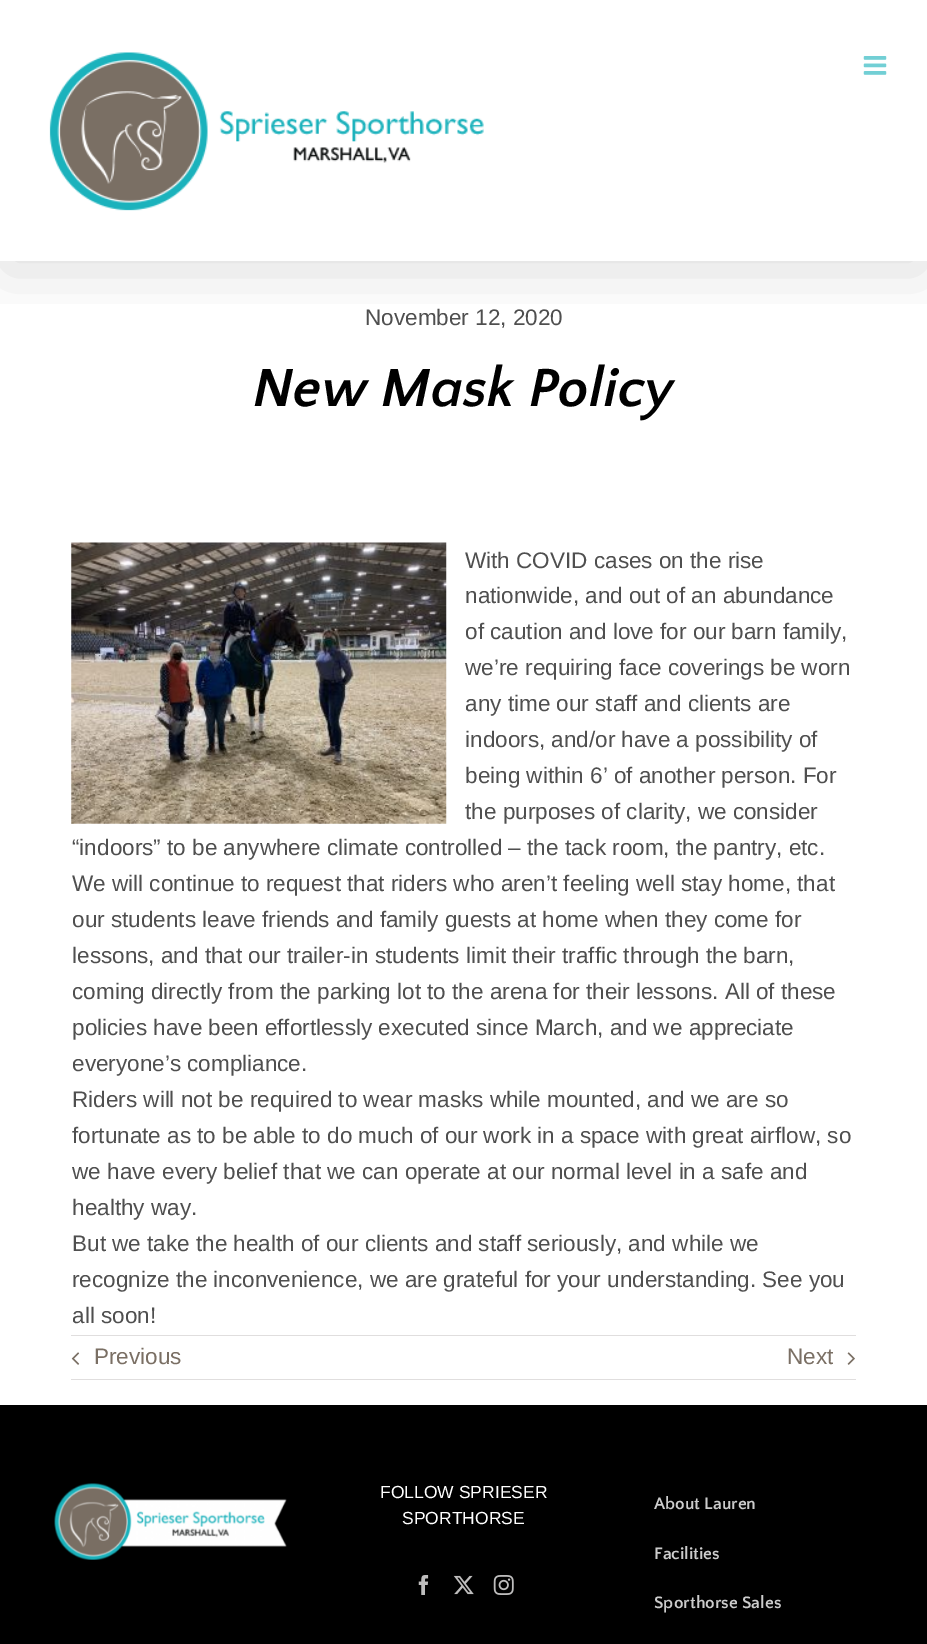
%!PS-Adobe-3.0
%%BoundingBox: 0 0 927 1644
%%LanguageLevel: 3
%%Pages: 1
%%EndComments
%%BeginProlog
/setink { 3 { 255 div 3 1 roll } repeat setrgbcolor } def
/usefont { [ exch dup neg 0 0 3 -1 roll 0 0 ] selectfont } def
/drawtext { setink usefont moveto show } def
/fillbox { setink rectfill } def
/setalpha { dup .setfillconstantalpha .setstrokeconstantalpha } def
/rrect { 5 dict begin { /r /h /w /y /x } { exch def } forall
  x r add y moveto x w add y 2 copy h add r arct x w add y h add x 1 index r arct
  x y h add x y r arct x y 2 copy exch w add exch r arct closepath end } def
/softshadow { 12 dict begin { /a /b /q /h /w /y /x } { exch def } forall gsave /was 0 def
  9 -2 -9 { dup b mul 4 div /e exch def 1 sub .425 mul 2.718 exch exp 1 add a .99 .min exch div /now exch def
    1 1 now sub 1 was sub div sub setalpha /was now def
    w h .min e 2 mul add 0 gt { x e sub y e sub w e 2 mul add h e 2 mul add
      q e add b .6 mul add w h .min 2 div e add .min 0 .max rrect fill } if } for grestore end } def
/drawimage { 5 dict begin { /h /w /y /x /name } { exch def } forall
  gsave x y translate w h scale
  w h 8 [w 0 0 h 0 0] name (r) file false 3 colorimage grestore end } def
%%EndProlog
%%BeginSetup
<< /PageSize [927 1644] /PageUsesTransparency true >> setpagedevice
%%EndSetup
%%Page: 1 1
0 .pushpdf14devicefilter
0 1644 translate 1 -1 scale
4 setmiterlimit
0 0 927 1644 255 255 255 fillbox
gsave
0 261 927 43 rectclip
0 0 0 setink
3 15 922 256 0 31 0.14 softshadow
grestore
(assets/img1.rgb) 49 52 435 159 drawimage
(assets/img2.rgb) 863 56 24 19 drawimage
(November 12, 2020) 365 325 /LiberationSans-Regular 22.5 79 79 79 drawtext
(New Mask Policy) 253 406 /QuattrocentoSans-BoldItalic 56 0 0 0 drawtext
(assets/img3.rgb) 71 542 376 282 drawimage
(With COVID cases on the rise) 465 568 /LiberationSans-Regular 22.5 79 79 79 drawtext
(nationwide, and out of an abundance) 465 603 /LiberationSans-Regular 22.5 79 79 79 drawtext
(of caution and love for our barn family,) 465 639 /LiberationSans-Regular 22.5 79 79 79 drawtext
(we’re requiring face coverings be worn) 465 675 /LiberationSans-Regular 22.5 79 79 79 drawtext
(any time our staff and clients are) 465 711 /LiberationSans-Regular 22.5 79 79 79 drawtext
(indoors, and/or have a possibility of) 465 747 /LiberationSans-Regular 22.5 79 79 79 drawtext
(being within 6’ of another person. For) 465 783 /LiberationSans-Regular 22.5 79 79 79 drawtext
(the purposes of clarity, we consider) 465 819 /LiberationSans-Regular 22.5 79 79 79 drawtext
(“indoors” to be anywhere climate controlled – the tack room, the pantry, etc.) 72 855 /LiberationSans-Regular 22.5 79 79 79 drawtext
(We will continue to request that riders who aren’t feeling well stay home, that) 72 891 /LiberationSans-Regular 22.5 79 79 79 drawtext
(our students leave friends and family guests at home when they come for) 72 927 /LiberationSans-Regular 22.5 79 79 79 drawtext
(lessons, and that our trailer-in students limit their traffic through the barn,) 72 963 /LiberationSans-Regular 22.5 79 79 79 drawtext
(coming directly from the parking lot to the arena for their lessons. All of these) 72 999 /LiberationSans-Regular 22.5 79 79 79 drawtext
(policies have been effortlessly executed since March, and we appreciate) 72 1035 /LiberationSans-Regular 22.5 79 79 79 drawtext
(everyone’s compliance.) 72 1071 /LiberationSans-Regular 22.5 79 79 79 drawtext
(Riders will not be required to wear masks while mounted, and we are so) 72 1107 /LiberationSans-Regular 22.5 79 79 79 drawtext
(fortunate as to be able to do much of our work in a space with great airflow, so) 72 1143 /LiberationSans-Regular 22.5 79 79 79 drawtext
(we have every belief that we can operate at our normal level in a safe and) 72 1179 /LiberationSans-Regular 22.5 79 79 79 drawtext
(healthy way.) 72 1215 /LiberationSans-Regular 22.5 79 79 79 drawtext
(But we take the health of our clients and staff seriously, and while we) 72 1251 /LiberationSans-Regular 22.5 79 79 79 drawtext
(recognize the inconvenience, we are grateful for your understanding. See you) 72 1287 /LiberationSans-Regular 22.5 79 79 79 drawtext
(all soon!) 72 1323 /LiberationSans-Regular 22.5 79 79 79 drawtext
71 1335 785 1 224 222 222 fillbox
71 1379 785 1 224 222 222 fillbox
(assets/img4.rgb) 71 1352 9 13 drawimage
(Previous) 94 1364 /LiberationSans-Regular 22.5 122 111 100 drawtext
(Next) 787 1364 /LiberationSans-Regular 22.5 122 111 100 drawtext
(assets/img5.rgb) 847 1352 8 13 drawimage
0 1405 927 239 0 0 0 fillbox
(assets/img6.rgb) 54 1483 233 77 drawimage
(FOLLOW SPRIESER) 380 1498 /LiberationSans-Regular 17.5 255 255 255 drawtext
(SPORTHORSE) 402 1524 /LiberationSans-Regular 17.5 255 255 255 drawtext
(assets/img7.rgb) 418 1575 11 20 drawimage
(assets/img8.rgb) 453 1575 21 20 drawimage
(assets/img9.rgb) 493 1575 21 20 drawimage
(About Lauren) 654 1509 /QuattrocentoSans-Bold 17.5 204 204 204 drawtext
(Facilities) 654 1559 /QuattrocentoSans-Bold 17.5 204 204 204 drawtext
(Sporthorse Sales) 654 1608 /QuattrocentoSans-Bold 17.5 204 204 204 drawtext
.poppdf14devicefilter showpage
%%EOF
